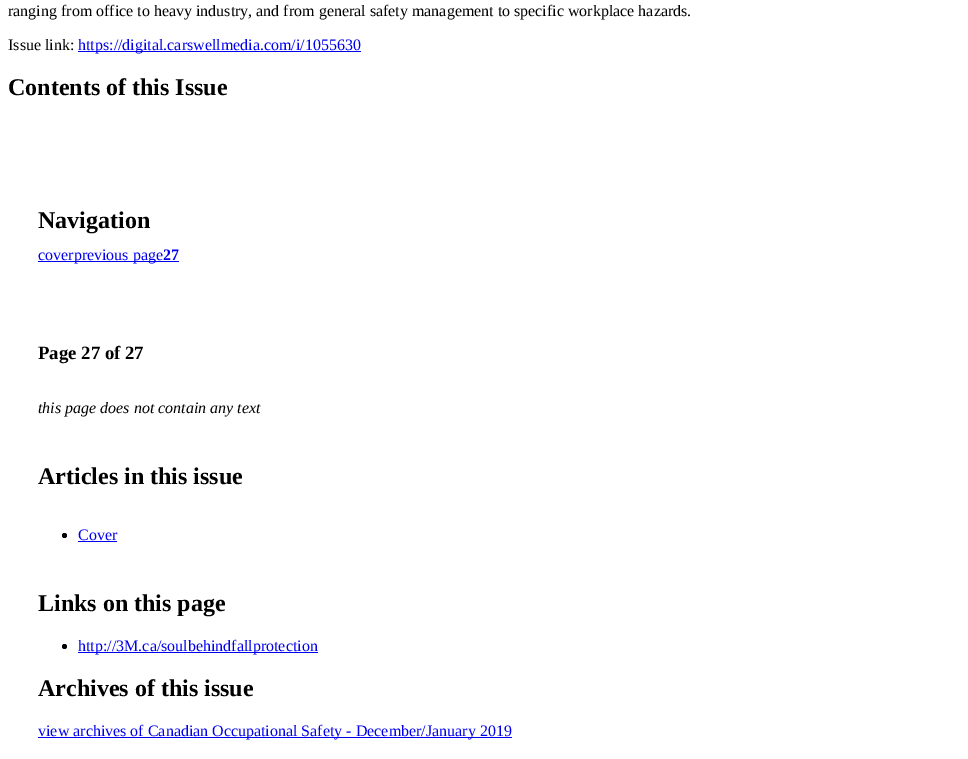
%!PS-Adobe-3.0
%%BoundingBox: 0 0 968 759
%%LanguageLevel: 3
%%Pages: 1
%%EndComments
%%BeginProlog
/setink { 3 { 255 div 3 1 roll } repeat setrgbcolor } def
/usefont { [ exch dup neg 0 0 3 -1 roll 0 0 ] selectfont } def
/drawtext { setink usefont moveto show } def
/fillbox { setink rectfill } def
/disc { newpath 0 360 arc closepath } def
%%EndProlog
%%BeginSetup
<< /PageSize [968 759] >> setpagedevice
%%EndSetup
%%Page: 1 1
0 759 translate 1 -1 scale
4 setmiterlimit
0 0 968 759 255 255 255 fillbox
(ranging from office to heavy industry, and from general safety management to specific workplace hazards.) 8 16 /LiberationSerif-Regular 16 0 0 0 drawtext
(Issue link:) 8 50 /LiberationSerif-Regular 16 0 0 0 drawtext
78 51 283 1 0 0 238 fillbox
(https://digital.carswellmedia.com/i/1055630) 78 50 /LiberationSerif-Regular 16 0 0 238 drawtext
(Contents of this Issue) 8 95 /LiberationSerif-Bold 24 0 0 0 drawtext
(Navigation) 38 228 /LiberationSerif-Bold 24 0 0 0 drawtext
38 261 141 1 0 0 238 fillbox
(coverprevious page) 38 260 /LiberationSerif-Regular 16 0 0 238 drawtext
(27) 163 260 /LiberationSerif-Bold 16 0 0 238 drawtext
(Page 27 of 27) 38 359 /LiberationSerif-Bold 18.75 0 0 0 drawtext
(this page does not contain any text) 38 413 /LiberationSerif-Italic 16 0 0 0 drawtext
(Articles in this issue) 38 484 /LiberationSerif-Bold 24 0 0 0 drawtext
64.5 535.5 2.5 disc fill
(Cover) 78 540 /LiberationSerif-Regular 16 0 0 238 drawtext
78 541 39 1 0 0 238 fillbox
(Links on this page) 38 611 /LiberationSerif-Bold 24 0 0 0 drawtext
64.5 646.5 2.5 disc fill
78 652 240 1 0 0 238 fillbox
(http://3M.ca/soulbehindfallprotection) 78 651 /LiberationSerif-Regular 16 0 0 238 drawtext
(Archives of this issue) 38 696 /LiberationSerif-Bold 24 0 0 0 drawtext
38 737 474 1 0 0 238 fillbox
(view archives of Canadian Occupational Safety - December/January 2019) 38 736 /LiberationSerif-Regular 16 0 0 238 drawtext
showpage
%%EOF
